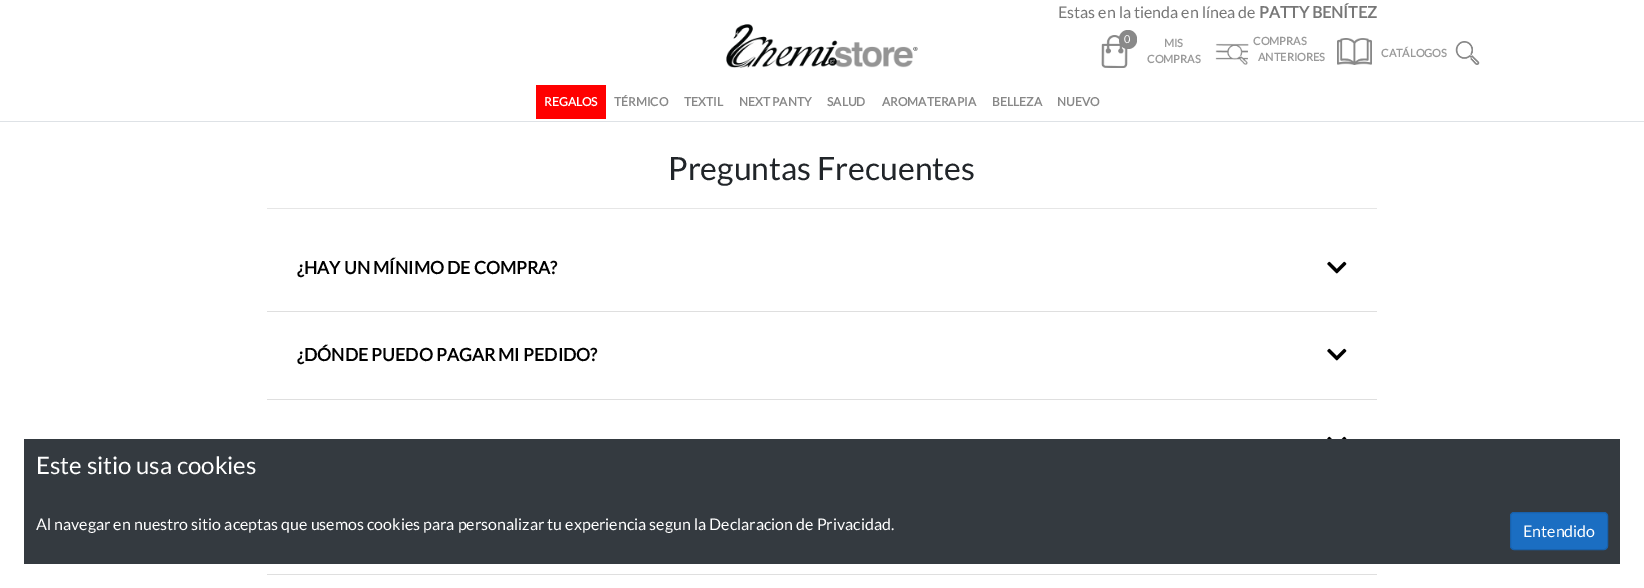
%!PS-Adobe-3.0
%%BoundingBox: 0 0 1644 588
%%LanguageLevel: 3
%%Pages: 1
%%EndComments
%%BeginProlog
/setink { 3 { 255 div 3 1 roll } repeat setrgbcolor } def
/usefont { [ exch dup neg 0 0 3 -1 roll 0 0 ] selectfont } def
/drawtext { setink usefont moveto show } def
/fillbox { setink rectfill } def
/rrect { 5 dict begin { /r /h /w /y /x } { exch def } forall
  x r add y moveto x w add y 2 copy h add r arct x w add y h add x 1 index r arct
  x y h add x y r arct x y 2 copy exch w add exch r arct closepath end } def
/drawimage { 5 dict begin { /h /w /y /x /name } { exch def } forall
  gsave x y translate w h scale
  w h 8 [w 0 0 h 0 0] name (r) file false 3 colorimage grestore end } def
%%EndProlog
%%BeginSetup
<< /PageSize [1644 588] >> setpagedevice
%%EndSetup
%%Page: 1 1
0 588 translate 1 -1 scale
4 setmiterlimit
0 0 1644 588 255 255 255 fillbox
(Estas en la tienda en línea de) 1058 18 /Lato-Regular 16 119 119 119 drawtext
(PATTY BENÍTEZ) 1259 18 /Lato-Bold 16 119 119 119 drawtext
(assets/img1.rgb) 726 24 192 44 drawimage
(assets/img2.rgb) 1101 35 27 33 drawimage
137 137 137 setink
1119 30 18 19 9 rrect fill
(0) 1124 43 /Lato-Regular 11 255 255 255 drawtext
(MIS) 1164 47 /Lato-Bold 11 154 154 154 drawtext
(COMPRAS) 1147 63 /Lato-Bold 11 154 154 154 drawtext
(assets/img3.rgb) 1215 43 34 22 drawimage
(COMPRAS) 1253 45 /Lato-Bold 11 154 154 154 drawtext
(ANTERIORES) 1258 61 /Lato-Bold 11 154 154 154 drawtext
(assets/img4.rgb) 1337 38 35 27 drawimage
(CATÁLOGOS) 1381 57 /Lato-Bold 11 154 154 154 drawtext
(assets/img5.rgb) 1455 41 25 24 drawimage
0 121 1644 1 222 226 230 fillbox
536 85 70 34 255 0 0 fillbox
(REGALOS) 544 106 /Lato-Bold 12 255 255 255 drawtext
(TÉRMICO) 614 106 /Lato-Bold 12 136 136 136 drawtext
(TEXTIL) 684 106 /Lato-Bold 12 136 136 136 drawtext
(NEXT PANTY) 739 106 /Lato-Bold 12 136 136 136 drawtext
(SALUD) 827 106 /Lato-Bold 12 136 136 136 drawtext
(AROMATERAPIA) 882 106 /Lato-Bold 12 136 136 136 drawtext
(BELLEZA) 992 106 /Lato-Bold 12 136 136 136 drawtext
(NUEVO) 1057 106 /Lato-Bold 12 136 136 136 drawtext
(Preguntas Frecuentes) 668 180 /Lato-Regular 32 33 37 41 drawtext
267 208 1110 1 230 230 230 fillbox
267 311 1110 1 223 223 223 fillbox
(¿HAY UN MÍNIMO DE COMPRA?) 297 274 /Lato-Bold 17.6 0 0 0 drawtext
(assets/img6.rgb) 1327 261 20 13 drawimage
267 399 1110 1 223 223 223 fillbox
(¿DÓNDE PUEDO PAGAR MI PEDIDO?) 297 361 /Lato-Bold 17.6 0 0 0 drawtext
(assets/img6.rgb) 1327 348 20 13 drawimage
(assets/img7.rgb) 1327 436 20 3 drawimage
267 574 1110 1 223 223 223 fillbox
24 439 1596 125 52 58 64 fillbox
(Este sitio usa cookies) 36 474 /Lato-Regular 24 255 255 255 drawtext
(Al navegar en nuestro sitio aceptas que usemos cookies para personalizar tu experiencia segun la Declaracion de Privacidad.) 36 530 /Lato-Regular 16 255 255 255 drawtext
27 110 194 setink
1510.5 512.5 97 37 3.5 rrect gsave fill grestore
24 97 172 setink
stroke
(Entendido) 1523 537 /Lato-Regular 16 255 255 255 drawtext
showpage
%%EOF
